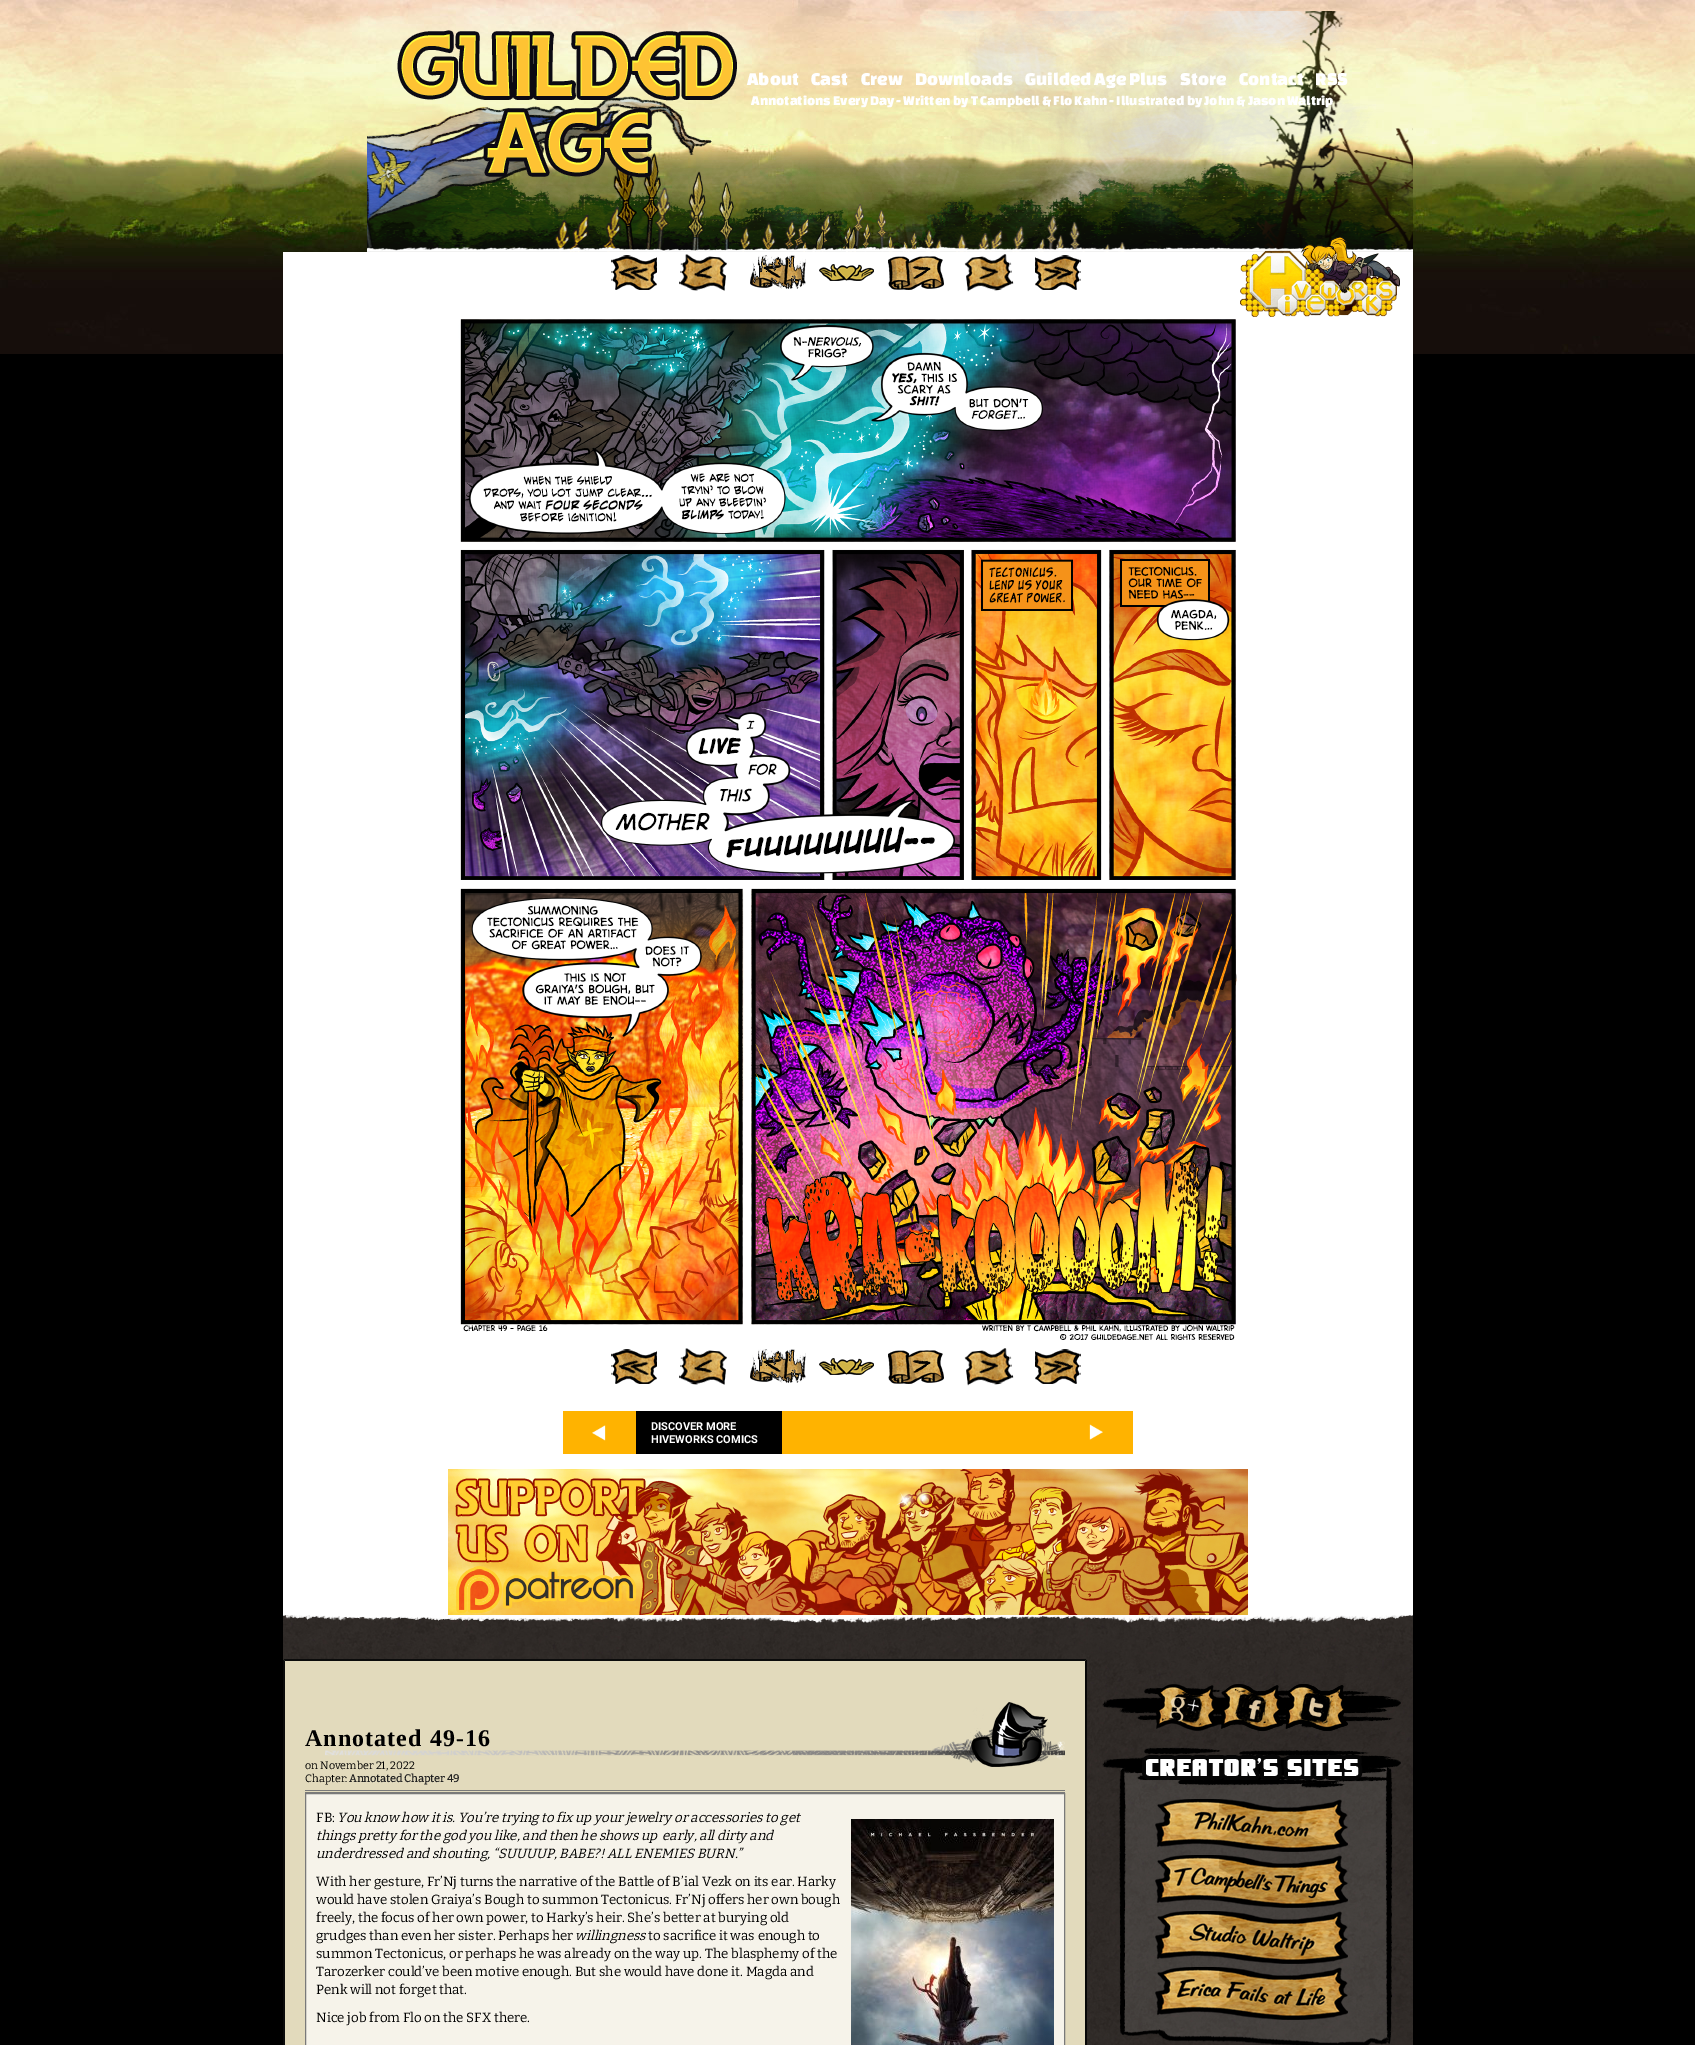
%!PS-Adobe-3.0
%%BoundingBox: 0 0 1695 2045
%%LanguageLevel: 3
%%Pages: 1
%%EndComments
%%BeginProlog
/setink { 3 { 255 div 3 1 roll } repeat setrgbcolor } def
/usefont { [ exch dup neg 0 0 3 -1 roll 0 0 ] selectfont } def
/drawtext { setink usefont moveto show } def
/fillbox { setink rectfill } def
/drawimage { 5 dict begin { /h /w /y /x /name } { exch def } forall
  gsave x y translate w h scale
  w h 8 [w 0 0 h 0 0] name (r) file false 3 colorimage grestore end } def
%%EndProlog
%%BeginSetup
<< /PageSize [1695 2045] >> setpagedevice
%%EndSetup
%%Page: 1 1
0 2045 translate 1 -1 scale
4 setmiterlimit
0 0 1695 2045 0 0 0 fillbox
(assets/img1.rgb) 0 0 1695 354 drawimage
(assets/img2.rgb) 367 11 1046 241 drawimage
(assets/img3.rgb) 397 30 340 148 drawimage
(About) 747 85 /ChangaOne-Regular 18.75 255 255 255 drawtext
(Cast) 811 85 /ChangaOne-Regular 18.75 255 255 255 drawtext
(Crew) 861 85 /ChangaOne-Regular 18.75 255 255 255 drawtext
(Downloads) 915 85 /ChangaOne-Regular 18.75 255 255 255 drawtext
(Guilded Age Plus) 1025 85 /ChangaOne-Regular 18.75 255 255 255 drawtext
(Store) 1180 85 /ChangaOne-Regular 18.75 255 255 255 drawtext
(Contact) 1239 85 /ChangaOne-Regular 18.75 255 255 255 drawtext
(RSS) 1315 85 /ChangaOne-Regular 18.75 255 255 255 drawtext
(Annotations Every Day - Written by T Campbell & Flo Kahn - Illustrated by John & Jason Waltrip) 751 105 /ChangaOne-Regular 14 255 255 255 drawtext
(assets/img4.rgb) 283 1615 1130 430 drawimage
(assets/img5.rgb) 283 1340 1130 284 drawimage
283 317 175 1023 255 255 255 fillbox
(assets/img6.rgb) 458 317 780 1023 drawimage
1238 317 175 1023 255 255 255 fillbox
283 252 1130 65 255 255 255 fillbox
(assets/img7.rgb) 1240 237 160 80 drawimage
(assets/img8.rgb) 611 255 46 35 drawimage
(assets/img9.rgb) 679 254 48 37 drawimage
(assets/img10.rgb) 750 255 56 34 drawimage
(assets/img11.rgb) 819 264 55 17 drawimage
(assets/img12.rgb) 888 256 56 34 drawimage
(assets/img13.rgb) 964 254 50 38 drawimage
(assets/img14.rgb) 1035 255 46 35 drawimage
(assets/img8.rgb) 611 1349 46 35 drawimage
(assets/img9.rgb) 679 1348 48 37 drawimage
(assets/img10.rgb) 750 1349 56 34 drawimage
(assets/img11.rgb) 819 1358 55 17 drawimage
(assets/img12.rgb) 888 1350 56 34 drawimage
(assets/img13.rgb) 964 1348 50 38 drawimage
(assets/img14.rgb) 1035 1349 46 35 drawimage
563 1411 570 43 255 179 0 fillbox
(assets/img15.rgb) 592 1425 14 16 drawimage
636 1411 146 43 0 0 0 fillbox
(DISCOVER MORE) 651 1430 /Roboto-Bold 11 255 255 255 drawtext
(HIVEWORKS COMICS) 651 1443 /Roboto-Bold 11 255 255 255 drawtext
(assets/img16.rgb) 1089 1424 14 16 drawimage
(assets/img17.rgb) 448 1469 800 146 drawimage
283 1659 804 386 226 218 188 fillbox
11 11 11 setink
283 1659 moveto 1087 1659 lineto 1085 1661 lineto 285 1661 lineto closepath fill
7 7 7 setink
1087 1659 moveto 1087 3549 lineto 1085 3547 lineto 1085 1661 lineto closepath fill
11 11 11 setink
283 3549 moveto 283 1659 lineto 285 1661 lineto 285 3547 lineto closepath fill
(assets/img18.rgb) 325 1702 740 65 drawimage
305 1790 760 1 121 121 121 fillbox
305 1792 760 1 121 121 121 fillbox
/LiberationSerif-Bold 24 usefont
0 0 0 setink
305 1746 moveto 1 0 32 1 0 (Annotated 49-16) awidthshow
(on November 21, 2022) 305 1769 /Bitter-Thin 10.75 0 0 0 drawtext
(Chapter:) 305 1782 /Bitter-Thin 10.75 0 0 0 drawtext
(Annotated Chapter 49) 349 1782 /Bitter-Bold 10.75 33 33 33 drawtext
246 243 234 setink
305.5 1793.5 moveto 1064.5 1793.5 lineto 1064.5 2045.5 lineto 305.5 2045.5 lineto closepath gsave fill grestore
121 121 121 setink
stroke
(FB:) 316 1822 /Bitter-Thin 13.35 0 0 0 drawtext
(You know how it is. You’re trying to fix up your jewelry or accessories to get) 337 1822 /Bitter-ThinItalic 13.35 0 0 0 drawtext
(things pretty for the god you like, and then he shows up  early, all dirty and) 316 1840 /Bitter-ThinItalic 13.35 0 0 0 drawtext
(assets/img19.rgb) 851 1819 203 226 drawimage
(underdressed and shouting, “SUUUUP, BABE?! ALL ENEMIES BURN.”) 316 1858 /Bitter-ThinItalic 13.35 0 0 0 drawtext
(With her gesture, Fr’Nj turns the narrative of the Battle of B’ial Vezk on its ear. Harky) 316 1886 /Bitter-Thin 13.35 0 0 0 drawtext
(would have stolen Graiya’s Bough to summon Tectonicus. Fr’Nj offers her own bough) 316 1904 /Bitter-Thin 13.35 0 0 0 drawtext
(freely, the focus of her own power, to Harky’s heir. She’s better at burying old) 316 1922 /Bitter-Thin 13.35 0 0 0 drawtext
(grudges than even her sister. Perhaps her) 316 1940 /Bitter-Thin 13.35 0 0 0 drawtext
(willingness) 575 1940 /Bitter-ThinItalic 13.35 0 0 0 drawtext
(to sacrifice it was enough to) 648 1940 /Bitter-Thin 13.35 0 0 0 drawtext
(summon Tectonicus, or perhaps he was already on the way up. The blasphemy of the) 316 1958 /Bitter-Thin 13.35 0 0 0 drawtext
(Tarozerker could’ve been motive enough. But she would have done it. Magda and) 316 1976 /Bitter-Thin 13.35 0 0 0 drawtext
(Penk will not forget that.) 316 1994 /Bitter-Thin 13.35 0 0 0 drawtext
(Nice job from Flo on the SFX there.) 316 2022 /Bitter-Thin 13.35 0 0 0 drawtext
(assets/img20.rgb) 1102 1687 299 41 drawimage
(assets/img21.rgb) 1155 1684 63 47 drawimage
(assets/img22.rgb) 1221 1684 62 47 drawimage
(assets/img23.rgb) 1285 1684 63 47 drawimage
(assets/img24.rgb) 1102 1747 299 298 drawimage
(assets/img25.rgb) 1155 1799 193 53 drawimage
(assets/img26.rgb) 1155 1855 193 53 drawimage
(assets/img27.rgb) 1155 1911 193 53 drawimage
(assets/img28.rgb) 1155 1967 193 53 drawimage
showpage
%%EOF
